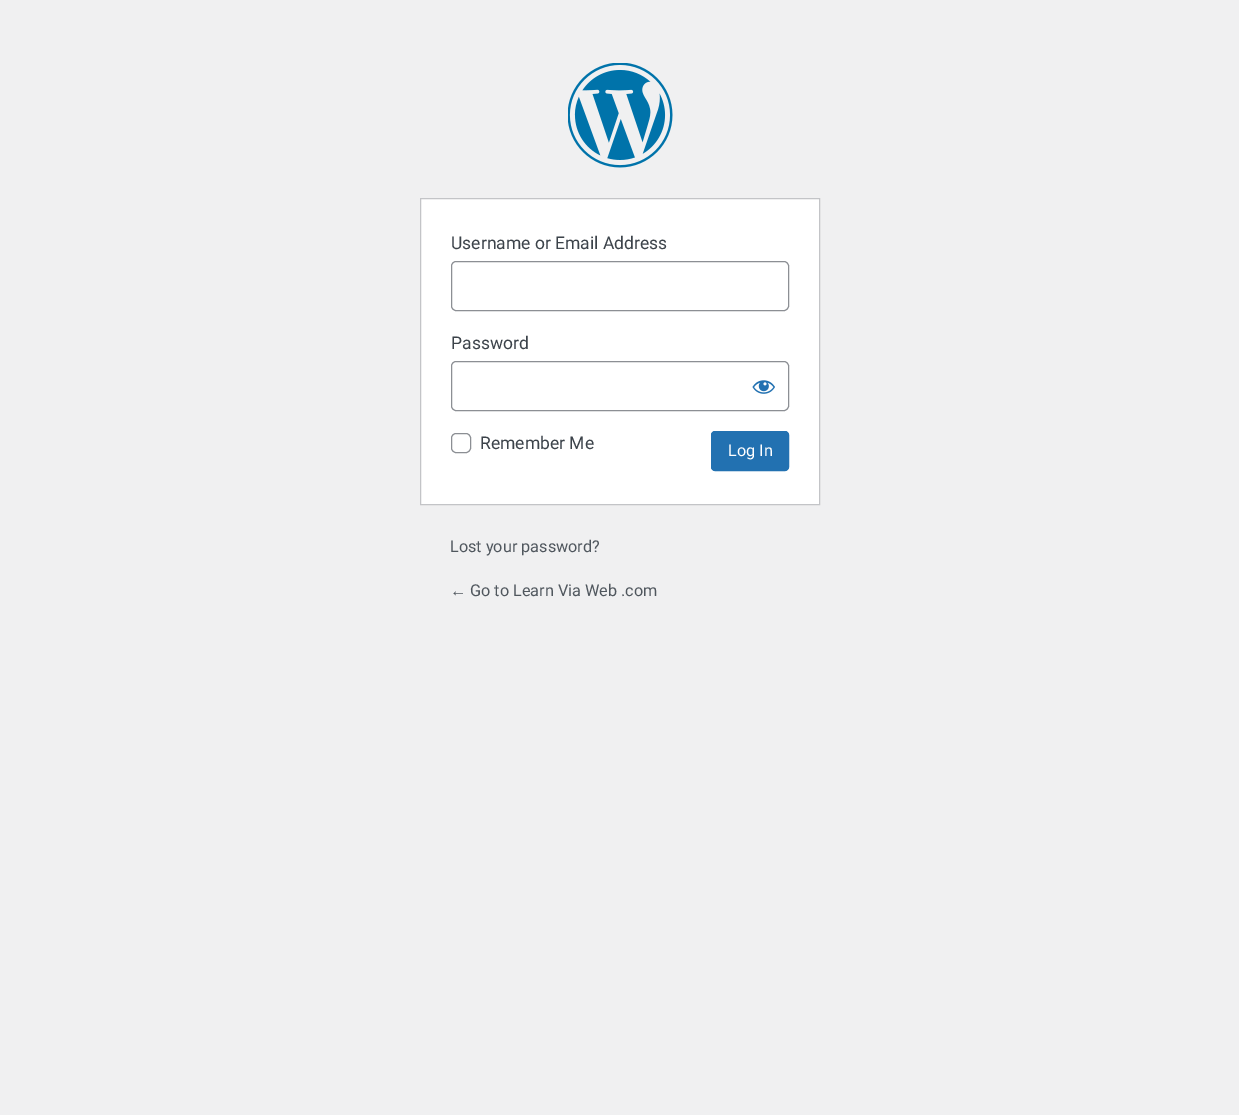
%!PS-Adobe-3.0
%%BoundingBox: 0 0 1239 1115
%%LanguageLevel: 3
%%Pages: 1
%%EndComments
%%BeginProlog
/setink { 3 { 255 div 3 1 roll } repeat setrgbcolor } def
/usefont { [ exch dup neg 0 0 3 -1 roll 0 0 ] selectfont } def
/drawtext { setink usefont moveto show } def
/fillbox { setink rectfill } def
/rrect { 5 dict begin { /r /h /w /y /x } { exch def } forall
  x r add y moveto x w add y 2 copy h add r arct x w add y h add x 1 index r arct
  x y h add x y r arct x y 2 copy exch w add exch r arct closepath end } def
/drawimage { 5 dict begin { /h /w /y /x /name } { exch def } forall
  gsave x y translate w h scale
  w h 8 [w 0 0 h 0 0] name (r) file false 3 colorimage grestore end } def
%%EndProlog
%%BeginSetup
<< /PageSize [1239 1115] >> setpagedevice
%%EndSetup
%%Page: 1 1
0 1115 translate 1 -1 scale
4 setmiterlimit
0 0 1239 1115 240 240 241 fillbox
(assets/img1.rgb) 568 63 105 105 drawimage
255 255 255 setink
420.5 198.5 moveto 819.5 198.5 lineto 819.5 504.5 lineto 420.5 504.5 lineto closepath gsave fill grestore
195 196 199 setink
stroke
(Username or Email Address) 451 249 /Roboto-Regular 17.5 60 67 74 drawtext
140 143 148 setink
451.5 261.5 337 49 4.5 rrect stroke
(Password) 451 349 /Roboto-Regular 17.5 60 67 74 drawtext
140 143 148 setink
451.5 361.5 337 49 4.5 rrect stroke
(assets/img2.rgb) 752 380 23 14 drawimage
451.5 433.5 19 19 4.5 rrect stroke
(Remember Me) 480 449 /Roboto-Regular 17.5 60 67 74 drawtext
34 113 177 setink
711.5 431.5 77 39 3.5 rrect gsave fill grestore
stroke
(Log In) 728 456 /Roboto-Regular 16.25 255 255 255 drawtext
(Lost your password?) 450 552 /Roboto-Regular 16.25 80 87 94 drawtext
(←) 450 596 /LiberationSans-Regular 16.25 80 87 94 drawtext
(Go to Learn Via Web .com) 470 596 /Roboto-Regular 16.25 80 87 94 drawtext
showpage
%%EOF
